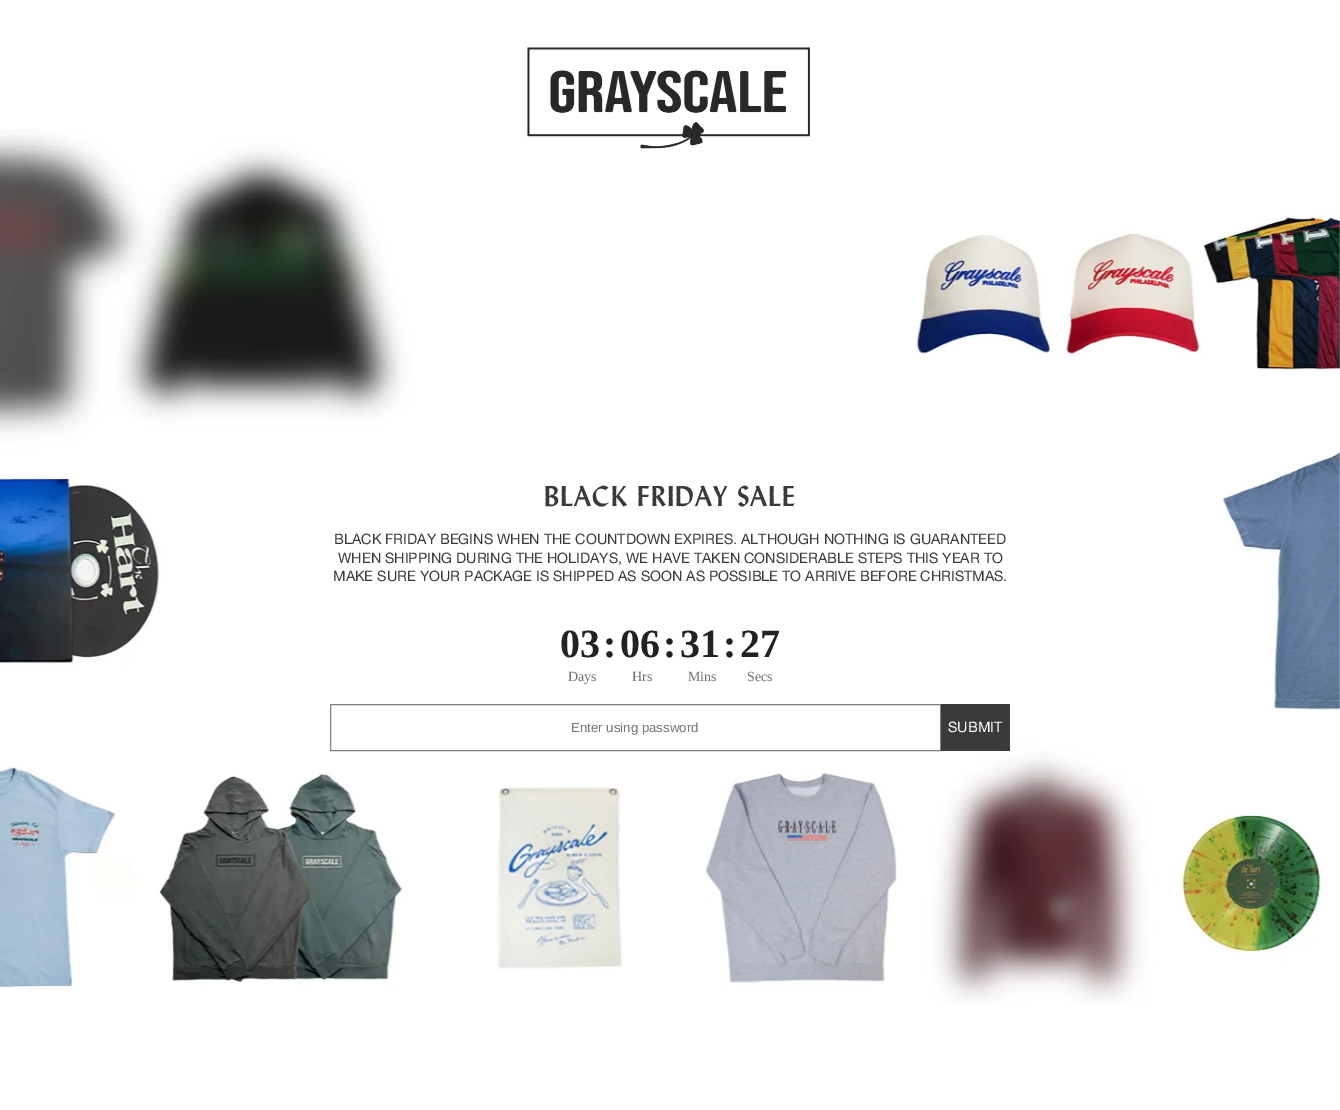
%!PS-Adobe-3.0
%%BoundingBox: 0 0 1340 1110
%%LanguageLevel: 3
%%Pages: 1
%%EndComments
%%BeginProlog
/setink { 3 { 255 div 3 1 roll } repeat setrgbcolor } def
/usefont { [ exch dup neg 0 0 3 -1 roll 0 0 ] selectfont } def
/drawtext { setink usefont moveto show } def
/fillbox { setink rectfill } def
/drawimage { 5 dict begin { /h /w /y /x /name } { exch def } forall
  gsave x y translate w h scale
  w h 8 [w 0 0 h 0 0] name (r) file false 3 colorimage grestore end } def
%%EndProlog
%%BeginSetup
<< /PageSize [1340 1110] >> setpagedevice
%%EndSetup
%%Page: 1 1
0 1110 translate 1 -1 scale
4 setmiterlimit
0 0 1340 1110 255 255 255 fillbox
(assets/img1.rgb) 0 129 1340 877 drawimage
(assets/img2.rgb) 527 47 283 102 drawimage
/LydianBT-Bold 28.25 usefont
58 58 58 setink
544 506 moveto 1 0 (BLACK FRIDAY SALE) ashow
(BLACK FRIDAY BEGINS WHEN THE COUNTDOWN EXPIRES. ALTHOUGH NOTHING IS GUARANTEED) 334 544 /HelveticaNeue-Regular 14.4 58 58 58 drawtext
(WHEN SHIPPING DURING THE HOLIDAYS, WE HAVE TAKEN CONSIDERABLE STEPS THIS YEAR TO) 338 563 /HelveticaNeue-Regular 14.4 58 58 58 drawtext
(MAKE SURE YOUR PACKAGE IS SHIPPED AS SOON AS POSSIBLE TO ARRIVE BEFORE CHRISTMAS.) 333 581 /HelveticaNeue-Regular 14.4 58 58 58 drawtext
(03) 560 657 /LiberationSerif-Bold 40 32 34 35 drawtext
(:) 603 657 /LiberationSerif-Bold 40 32 34 35 drawtext
(06) 620 657 /LiberationSerif-Bold 40 32 34 35 drawtext
(:) 663 657 /LiberationSerif-Bold 40 32 34 35 drawtext
(31) 680 657 /LiberationSerif-Bold 40 32 34 35 drawtext
(:) 723 657 /LiberationSerif-Bold 40 32 34 35 drawtext
(27) 740 657 /LiberationSerif-Bold 40 32 34 35 drawtext
(Days) 568 681 /LiberationSerif-Regular 14 109 113 117 drawtext
(Hrs) 632 681 /LiberationSerif-Regular 14 109 113 117 drawtext
(Mins) 688 681 /LiberationSerif-Regular 14 109 113 117 drawtext
(Secs) 747 681 /LiberationSerif-Regular 14 109 113 117 drawtext
128 128 128 setink
330.5 704.5 610 46 rectstroke
(Enter using password) 571 732 /LiberationSans-Regular 13.25 117 117 117 drawtext
941 704 69 47 58 58 58 fillbox
(SUBMIT) 948 732 /HelveticaNeue-Regular 14.4 255 255 255 drawtext
showpage
%%EOF
